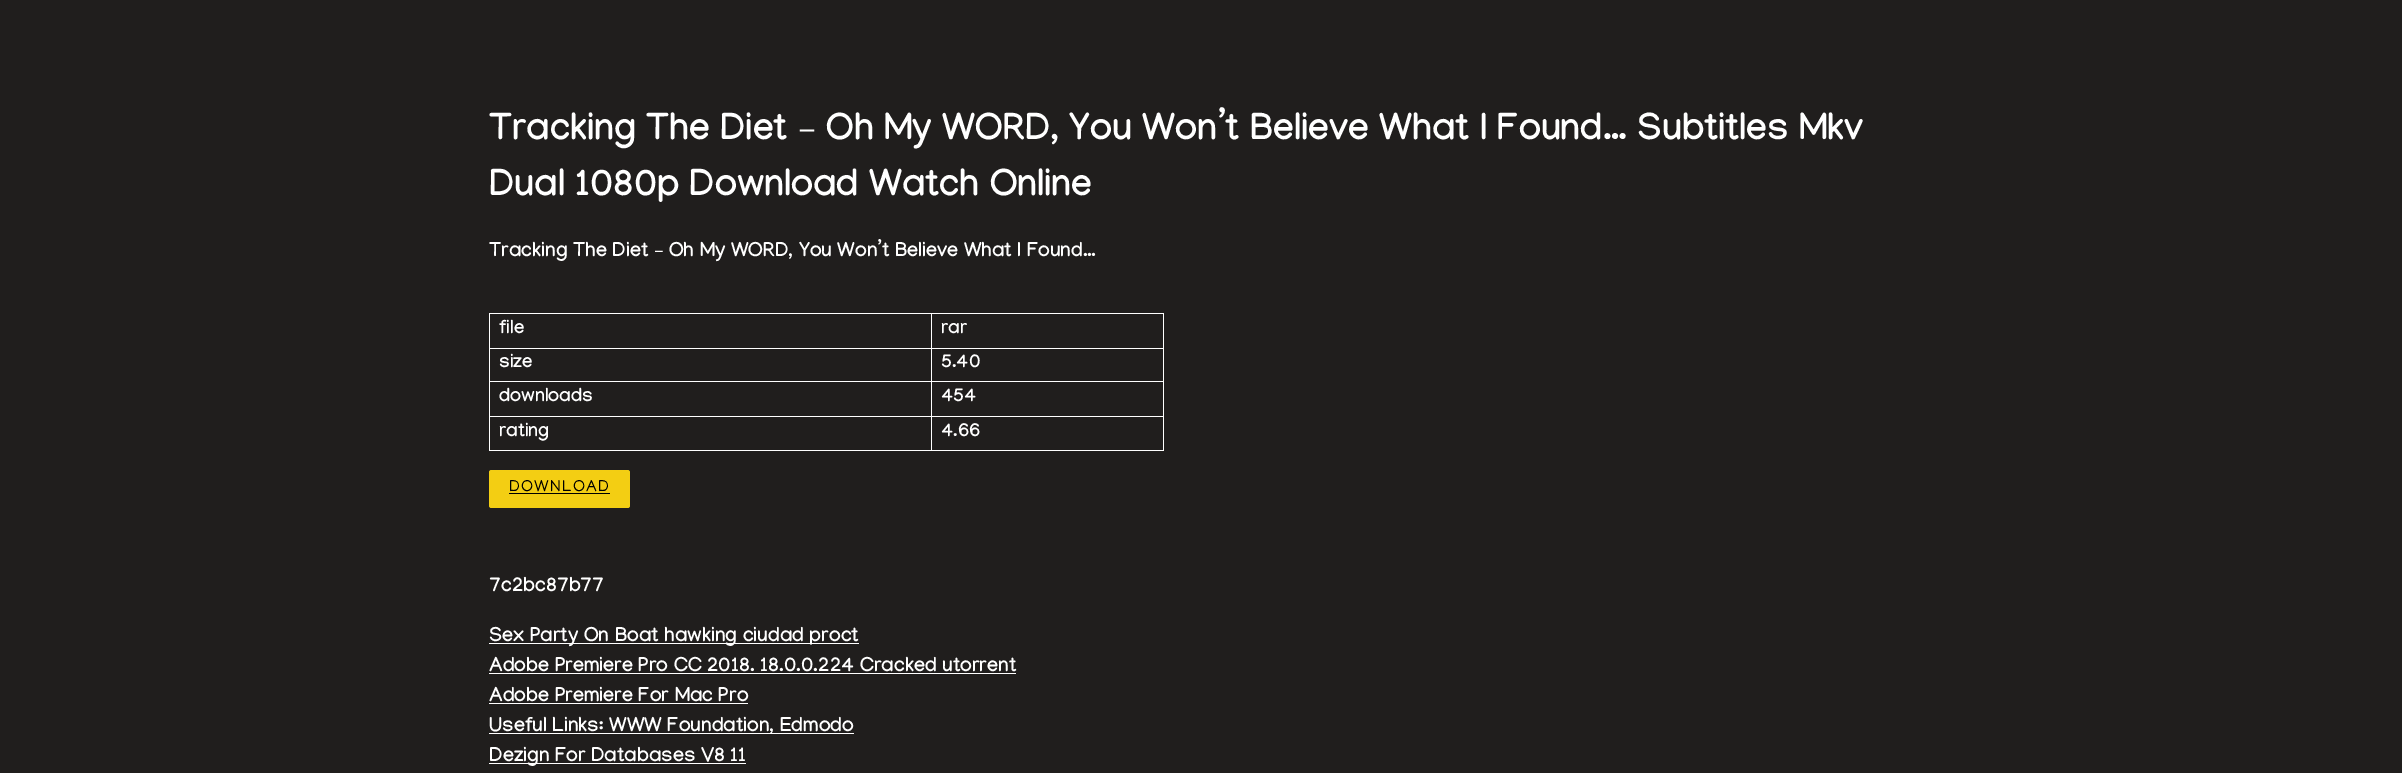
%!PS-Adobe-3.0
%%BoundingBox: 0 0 2402 773
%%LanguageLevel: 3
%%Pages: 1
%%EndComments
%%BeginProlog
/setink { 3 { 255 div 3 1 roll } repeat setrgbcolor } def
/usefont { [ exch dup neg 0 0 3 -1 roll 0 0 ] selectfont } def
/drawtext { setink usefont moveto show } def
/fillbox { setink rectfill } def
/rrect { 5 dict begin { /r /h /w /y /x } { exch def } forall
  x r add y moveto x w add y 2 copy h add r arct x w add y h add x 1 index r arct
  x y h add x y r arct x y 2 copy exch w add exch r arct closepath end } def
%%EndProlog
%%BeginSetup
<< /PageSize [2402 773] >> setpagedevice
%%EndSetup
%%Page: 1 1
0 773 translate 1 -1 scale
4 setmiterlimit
0 0 2402 773 32 30 29 fillbox
(Tracking The Diet – Oh My WORD, You Won’t Believe What I Found… Subtitles Mkv) 489 139 /Manjari-Bold 37.5 255 255 255 drawtext
(Dual 1080p Download Watch Online) 489 195 /Manjari-Bold 37.5 255 255 255 drawtext
(Tracking The Diet – Oh My WORD, You Won’t Believe What I Found…) 489 256 /Manjari-Bold 20 255 255 255 drawtext
931 313 233 1 255 255 255 fillbox
931 348 233 1 255 255 255 fillbox
931 381 233 1 255 255 255 fillbox
931 416 233 1 255 255 255 fillbox
1163 416 1 35 255 255 255 fillbox
931 450 233 1 255 255 255 fillbox
931 416 1 35 255 255 255 fillbox
489 416 444 1 255 255 255 fillbox
931 381 1 37 255 255 255 fillbox
489 381 444 1 255 255 255 fillbox
931 348 1 35 255 255 255 fillbox
489 348 444 1 255 255 255 fillbox
931 313 1 36 255 255 255 fillbox
489 313 444 1 255 255 255 fillbox
489 450 444 1 255 255 255 fillbox
489 416 1 35 255 255 255 fillbox
489 381 1 37 255 255 255 fillbox
489 348 1 35 255 255 255 fillbox
489 313 1 36 255 255 255 fillbox
(file) 499 333 /Manjari-Bold 18.75 255 255 255 drawtext
1163 381 1 37 255 255 255 fillbox
1163 348 1 35 255 255 255 fillbox
1163 313 1 36 255 255 255 fillbox
(rar) 941 333 /Manjari-Bold 18.75 255 255 255 drawtext
(size) 499 367 /Manjari-Bold 18.75 255 255 255 drawtext
(5.40) 941 367 /Manjari-Bold 18.75 255 255 255 drawtext
(downloads) 499 401 /Manjari-Bold 18.75 255 255 255 drawtext
(454) 941 401 /Manjari-Bold 18.75 255 255 255 drawtext
(rating) 499 436 /Manjari-Bold 18.75 255 255 255 drawtext
(4.66) 941 436 /Manjari-Bold 18.75 255 255 255 drawtext
243 206 19 setink
489 470 141 38 2.5 rrect fill
/Manjari-Regular 16.25 usefont
0 0 0 setink
509 491 moveto 1.25 0 (DOWNLOAD) ashow
509 493 101 1 0 0 0 fillbox
(7c2bc87b77) 489 591 /Manjari-Bold 20 255 255 255 drawtext
489 643 370 1 255 255 255 fillbox
(Sex Party On Boat hawking ciudad proct) 489 641 /Manjari-Bold 20 255 255 255 drawtext
(Adobe Premiere Pro CC 2018. 18.0.0.224 Cracked utorrent) 489 671 /Manjari-Bold 20 255 255 255 drawtext
489 673 527 1 255 255 255 fillbox
(Adobe Premiere For Mac Pro) 489 701 /Manjari-Bold 20 255 255 255 drawtext
489 703 259 1 255 255 255 fillbox
489 733 365 1 255 255 255 fillbox
(Useful Links: WWW Foundation, Edmodo) 489 731 /Manjari-Bold 20 255 255 255 drawtext
489 763 257 1 255 255 255 fillbox
(Dezign For Databases V8 11) 489 761 /Manjari-Bold 20 255 255 255 drawtext
showpage
%%EOF
